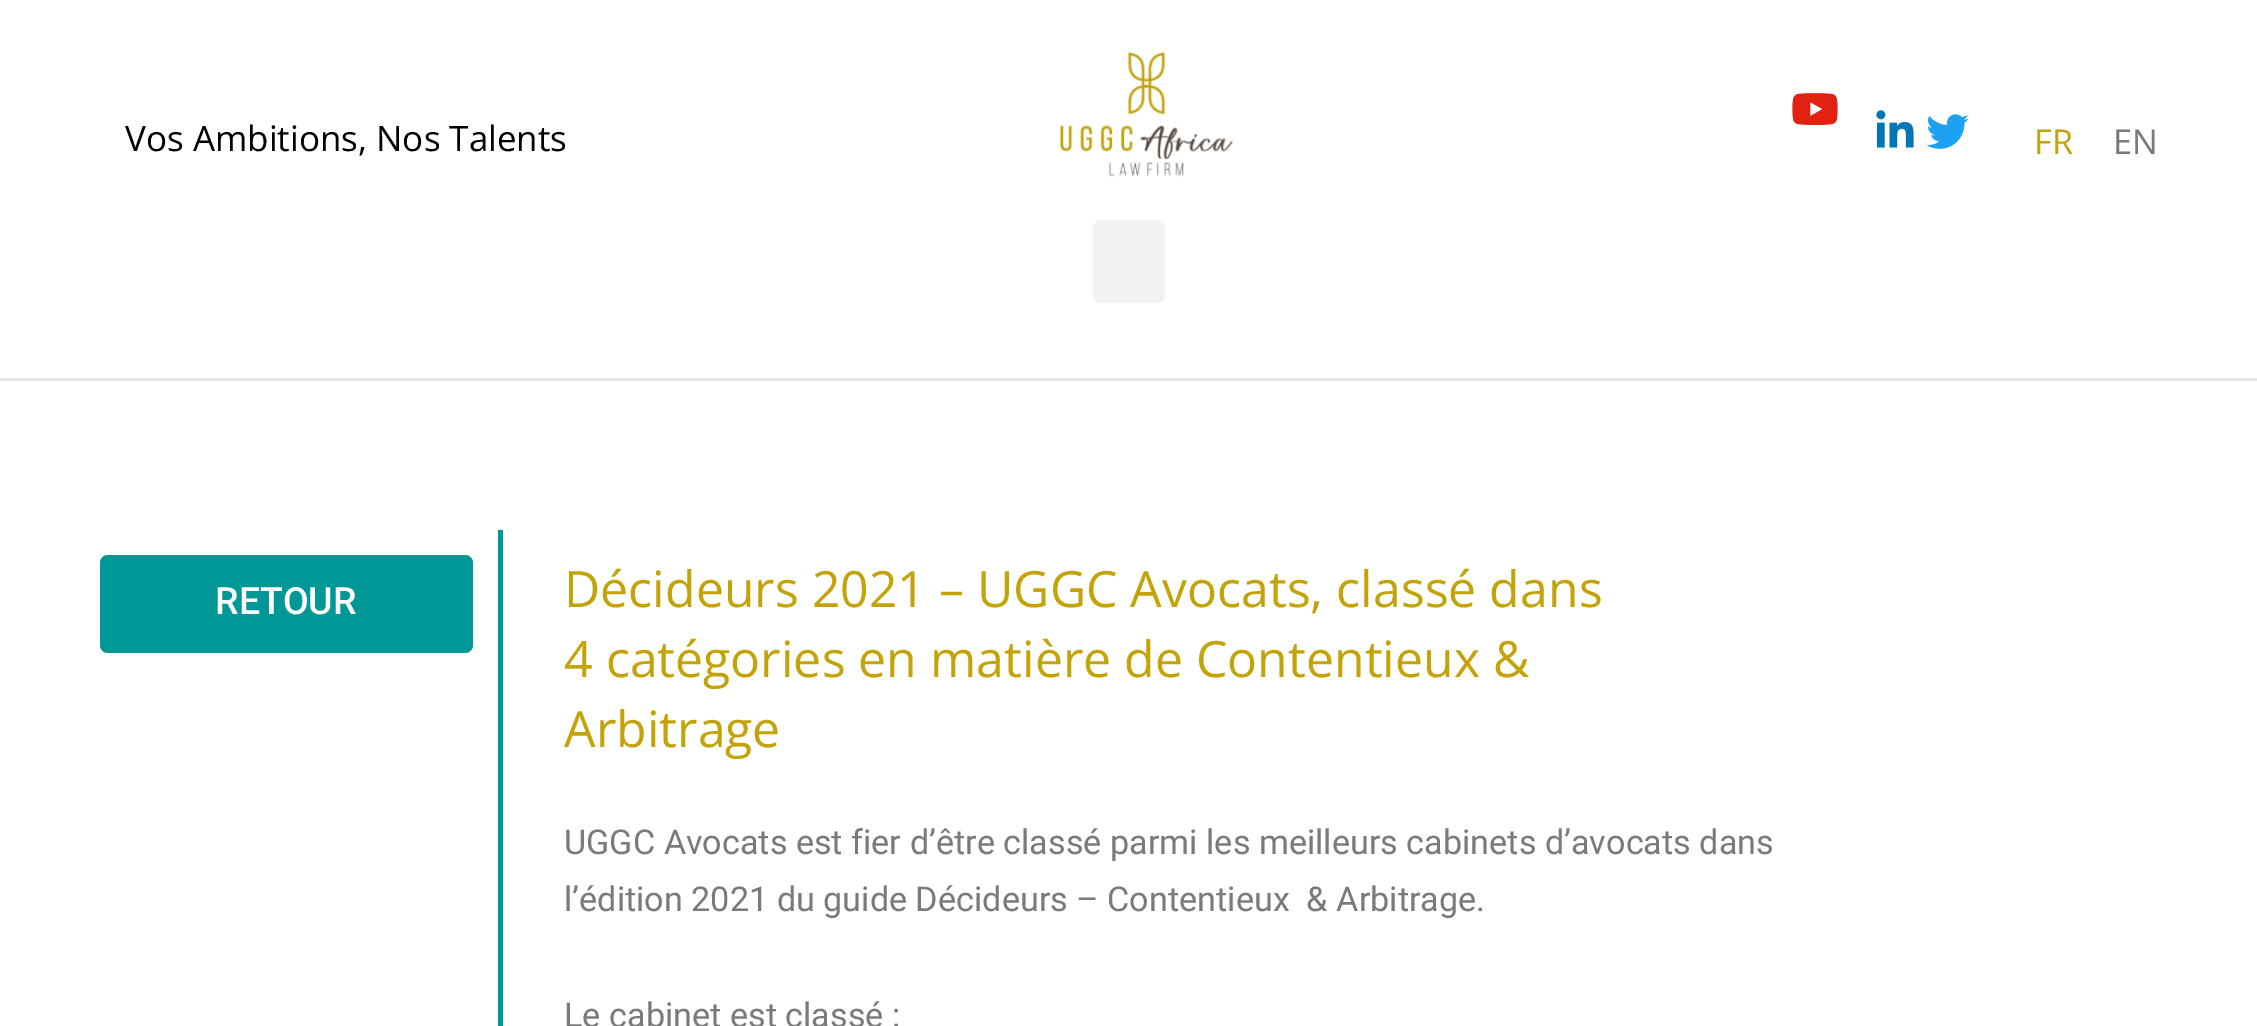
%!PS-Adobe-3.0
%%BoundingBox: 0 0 2257 1026
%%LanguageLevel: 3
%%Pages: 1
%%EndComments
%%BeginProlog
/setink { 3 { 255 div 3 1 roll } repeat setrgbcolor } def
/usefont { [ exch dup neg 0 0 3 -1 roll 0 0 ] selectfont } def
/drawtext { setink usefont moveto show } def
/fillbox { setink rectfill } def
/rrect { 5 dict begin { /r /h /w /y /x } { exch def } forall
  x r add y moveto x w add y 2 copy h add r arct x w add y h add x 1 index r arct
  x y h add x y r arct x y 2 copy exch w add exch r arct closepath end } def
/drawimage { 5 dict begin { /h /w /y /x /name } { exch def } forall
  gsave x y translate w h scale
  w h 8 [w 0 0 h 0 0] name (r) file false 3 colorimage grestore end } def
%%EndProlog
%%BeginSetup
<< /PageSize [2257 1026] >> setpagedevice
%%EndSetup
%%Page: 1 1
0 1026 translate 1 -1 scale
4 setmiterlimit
0 0 2257 1026 255 255 255 fillbox
0 378 2257 3 231 231 231 fillbox
(Vos Ambitions, Nos Talents) 125 151 /OpenSans-Regular 35 0 0 0 drawtext
(assets/img1.rgb) 1060 52 174 125 drawimage
(assets/img2.rgb) 1792 93 46 32 drawimage
(assets/img3.rgb) 1876 110 38 38 drawimage
(assets/img4.rgb) 1926 114 43 35 drawimage
(FR) 2034 154 /OpenSans-Regular 34.2 195 163 8 drawtext
(EN) 2113 154 /OpenSans-Regular 34.2 122 122 122 drawtext
242 242 242 setink
1093 220 72 83 8 rrect fill
0 152 150 setink
100 555 373 98 8 rrect fill
(RETOUR) 215 614 /Roboto-Medium 37.5 255 255 255 drawtext
498 530 5 496 0 152 150 fillbox
(Décideurs 2021 – UGGC Avocats, classé dans) 564 607 /OpenSans-Regular 50 195 163 8 drawtext
(4 catégories en matière de Contentieux &) 564 677 /OpenSans-Regular 50 195 163 8 drawtext
(Arbitrage) 564 747 /OpenSans-Regular 50 195 163 8 drawtext
(UGGC Avocats est fier d’être classé parmi les meilleurs cabinets d’avocats dans) 564 854 /Roboto-Regular 34.2 122 122 122 drawtext
(l’édition 2021 du guide Décideurs – Contentieux  & Arbitrage.) 564 911 /Roboto-Regular 34.2 122 122 122 drawtext
(Le cabinet est classé :) 564 1027 /Roboto-Regular 34.2 122 122 122 drawtext
showpage
%%EOF
